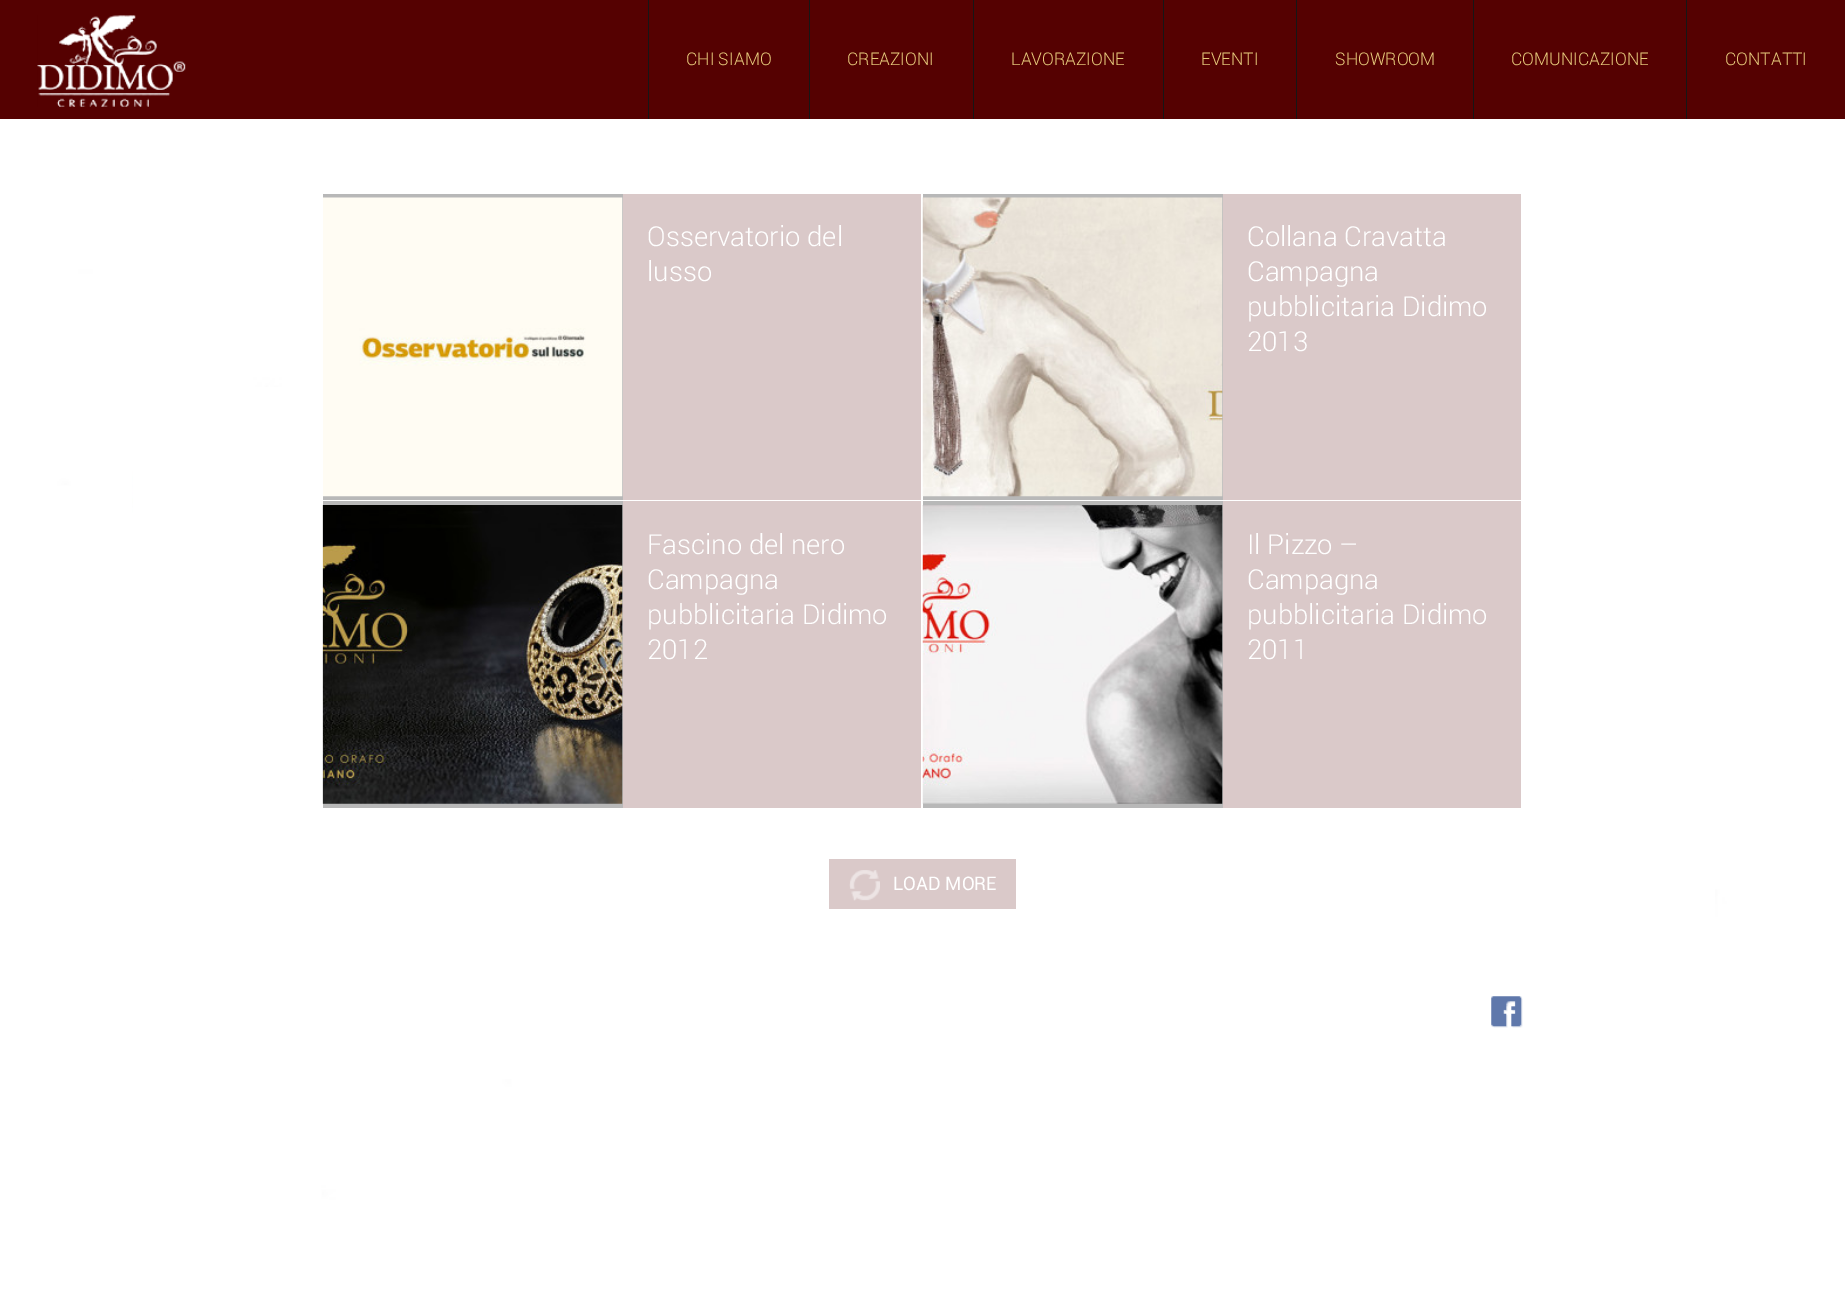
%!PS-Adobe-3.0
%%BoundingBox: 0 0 1845 1293
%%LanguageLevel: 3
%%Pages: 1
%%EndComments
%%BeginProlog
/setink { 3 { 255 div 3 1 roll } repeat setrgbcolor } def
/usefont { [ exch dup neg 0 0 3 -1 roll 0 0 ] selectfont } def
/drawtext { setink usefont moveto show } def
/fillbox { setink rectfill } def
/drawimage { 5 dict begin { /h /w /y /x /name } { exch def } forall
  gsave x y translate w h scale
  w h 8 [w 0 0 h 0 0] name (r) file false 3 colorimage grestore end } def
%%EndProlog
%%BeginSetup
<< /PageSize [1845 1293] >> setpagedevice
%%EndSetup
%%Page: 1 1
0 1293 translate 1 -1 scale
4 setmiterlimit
0 0 1845 1293 255 255 255 fillbox
0 0 1845 119 85 1 1 fillbox
(assets/img1.rgb) 37 15 149 92 drawimage
648 0 1 119 22 22 22 fillbox
(CHI SIAMO) 686 65 /Roboto-Light 17.5 230 201 123 drawtext
809 0 1 119 22 22 22 fillbox
(CREAZIONI) 847 65 /Roboto-Light 17.5 230 201 123 drawtext
973 0 1 119 22 22 22 fillbox
(LAVORAZIONE) 1011 65 /Roboto-Light 17.5 230 201 123 drawtext
1163 0 1 119 22 22 22 fillbox
(EVENTI) 1201 65 /Roboto-Light 17.5 230 201 123 drawtext
1296 0 1 119 22 22 22 fillbox
(SHOWROOM) 1335 65 /Roboto-Light 17.5 230 201 123 drawtext
1473 0 1 119 22 22 22 fillbox
(COMUNICAZIONE) 1511 65 /Roboto-Light 17.5 230 201 123 drawtext
1686 0 1 119 22 22 22 fillbox
(CONTATTI) 1725 65 /Roboto-Light 17.5 230 201 123 drawtext
(assets/img8.rgb) 0 119 1845 1174 drawimage
133 387 1582 692 255 255 255 fillbox
323 194 300 306 184 184 184 fillbox
(assets/img2.rgb) 323 197 300 300 drawimage
623 194 298 306 218 201 201 fillbox
(Osservatorio del) 647 246 /Roboto-Light 27.5 255 255 255 drawtext
(lusso) 647 281 /Roboto-Light 27.5 255 255 255 drawtext
923 194 300 306 184 184 184 fillbox
(assets/img3.rgb) 922 197 301 300 drawimage
1223 194 298 306 218 201 201 fillbox
(Collana Cravatta) 1247 246 /Roboto-Light 27.5 255 255 255 drawtext
(Campagna) 1247 281 /Roboto-Light 27.5 255 255 255 drawtext
(pubblicitaria Didimo) 1247 316 /Roboto-Light 27.5 255 255 255 drawtext
(2013) 1247 351 /Roboto-Light 27.5 255 255 255 drawtext
323 501 300 307 184 184 184 fillbox
(assets/img4.rgb) 322 505 301 299 drawimage
623 501 298 307 218 201 201 fillbox
(Fascino del nero) 647 554 /Roboto-Light 27.5 255 255 255 drawtext
(Campagna) 647 589 /Roboto-Light 27.5 255 255 255 drawtext
(pubblicitaria Didimo) 647 624 /Roboto-Light 27.5 255 255 255 drawtext
(2012) 647 659 /Roboto-Light 27.5 255 255 255 drawtext
923 501 300 307 184 184 184 fillbox
(assets/img5.rgb) 922 505 301 299 drawimage
1223 501 298 307 218 201 201 fillbox
(Il Pizzo –) 1247 554 /Roboto-Light 27.5 255 255 255 drawtext
(Campagna) 1247 589 /Roboto-Light 27.5 255 255 255 drawtext
(pubblicitaria Didimo) 1247 624 /Roboto-Light 27.5 255 255 255 drawtext
(2011) 1247 659 /Roboto-Light 27.5 255 255 255 drawtext
829 859 187 50 218 201 201 fillbox
(assets/img6.rgb) 849 870 31 31 drawimage
(LOAD MORE) 893 890 /Roboto-Regular 18.75 255 255 255 drawtext
(assets/img7.rgb) 1491 996 32 32 drawimage
showpage
%%EOF
